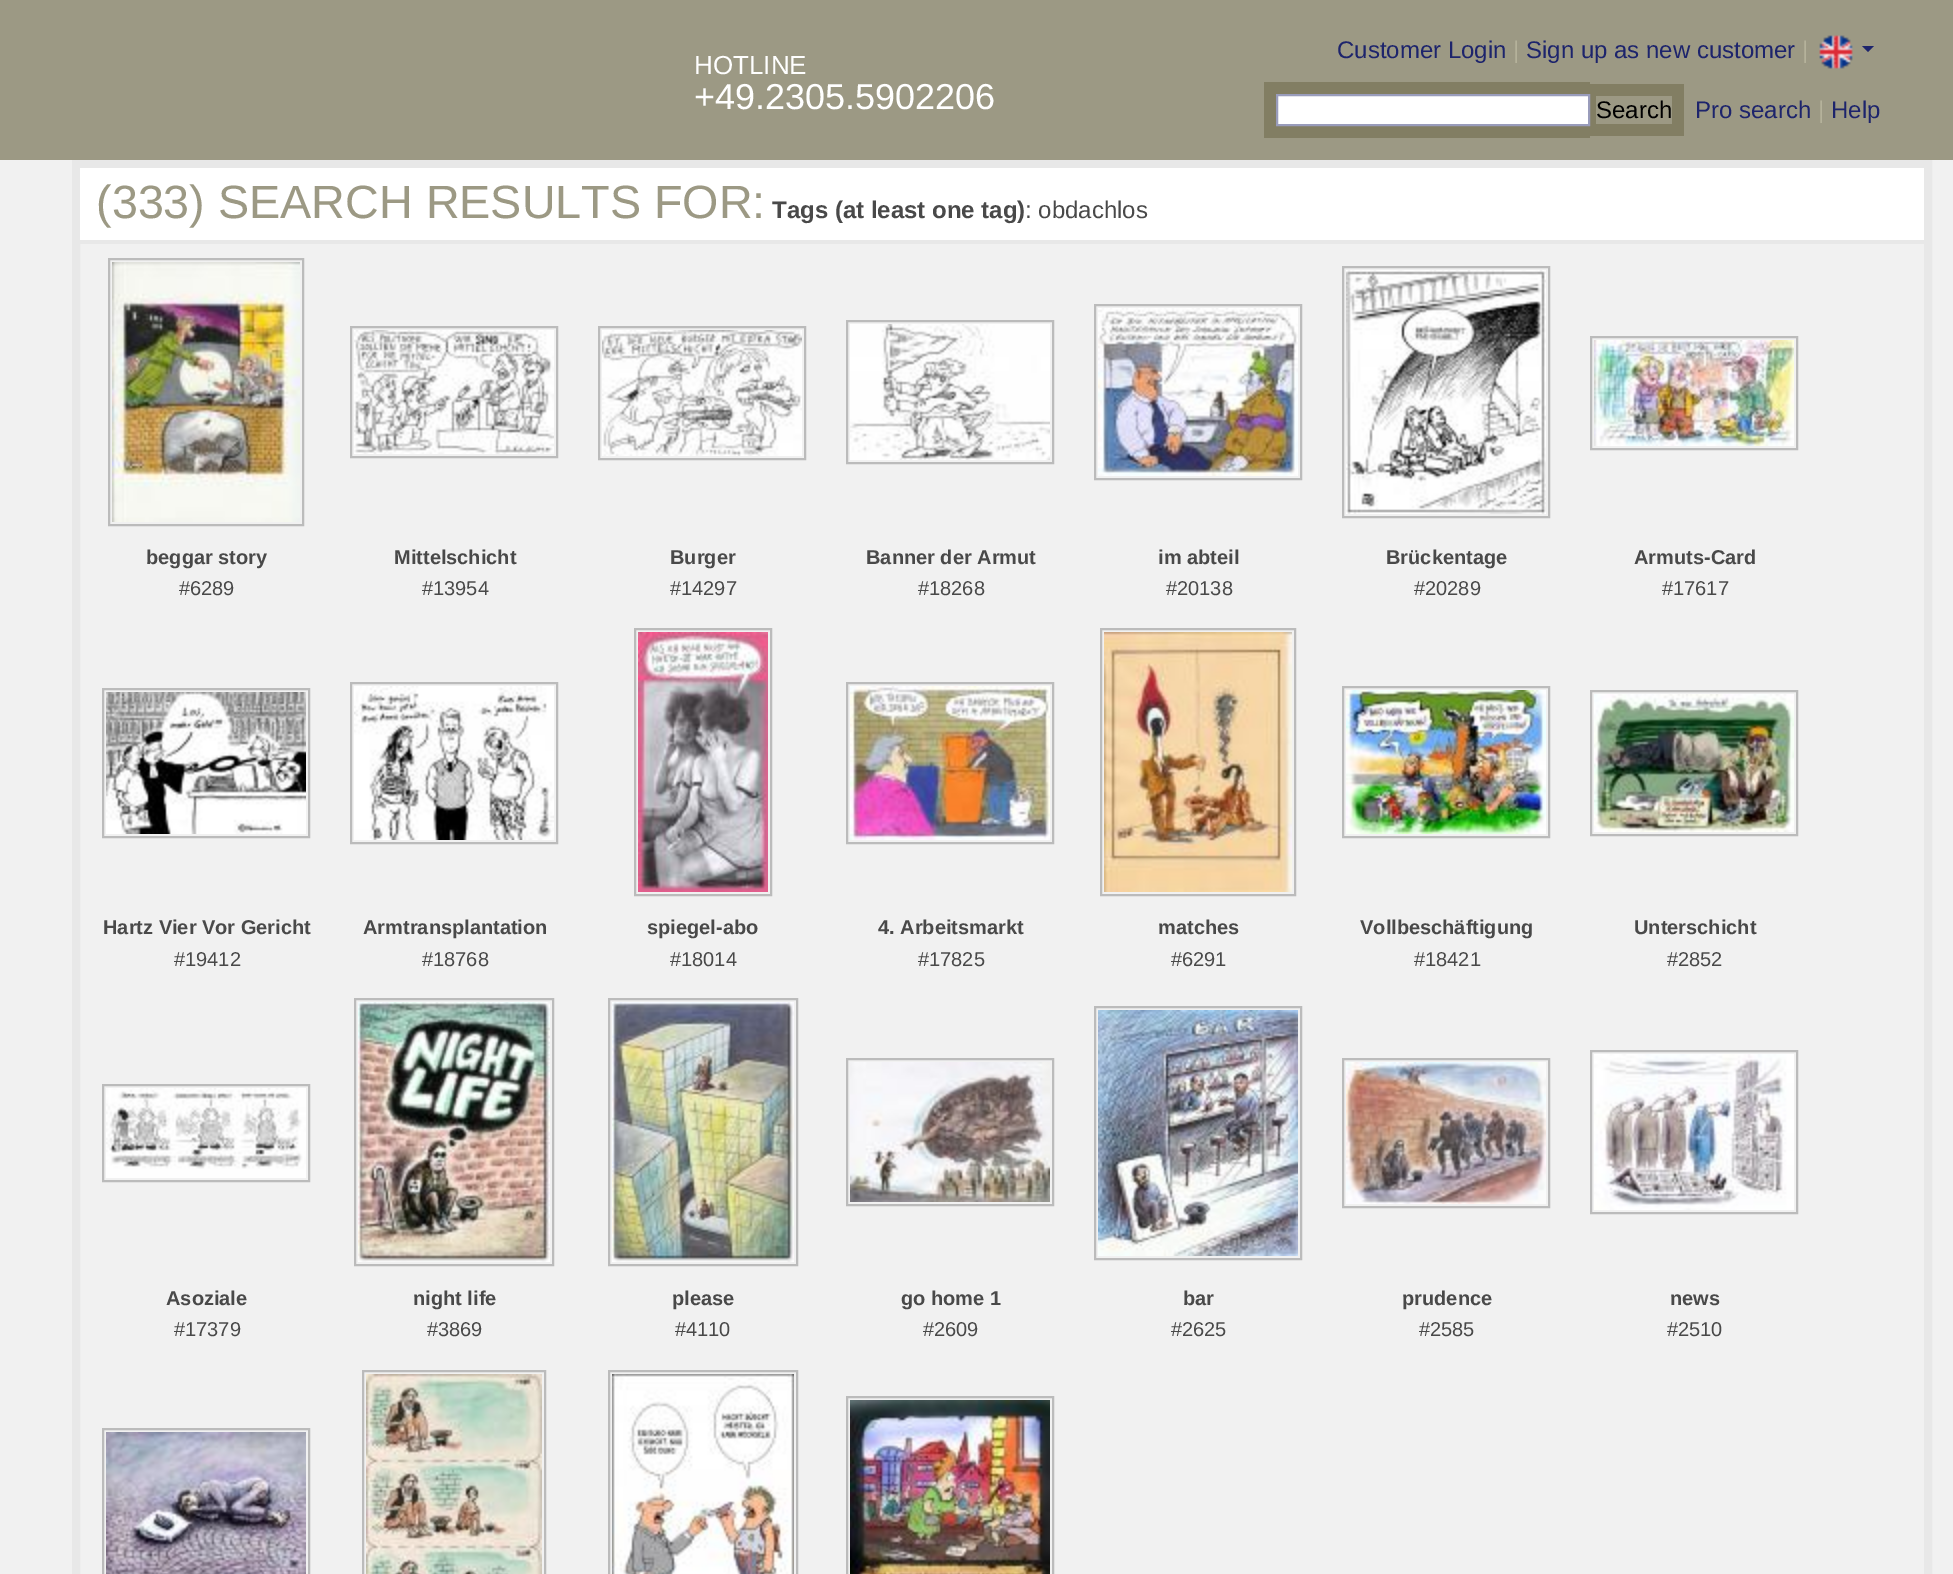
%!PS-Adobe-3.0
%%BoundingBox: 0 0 1953 1574
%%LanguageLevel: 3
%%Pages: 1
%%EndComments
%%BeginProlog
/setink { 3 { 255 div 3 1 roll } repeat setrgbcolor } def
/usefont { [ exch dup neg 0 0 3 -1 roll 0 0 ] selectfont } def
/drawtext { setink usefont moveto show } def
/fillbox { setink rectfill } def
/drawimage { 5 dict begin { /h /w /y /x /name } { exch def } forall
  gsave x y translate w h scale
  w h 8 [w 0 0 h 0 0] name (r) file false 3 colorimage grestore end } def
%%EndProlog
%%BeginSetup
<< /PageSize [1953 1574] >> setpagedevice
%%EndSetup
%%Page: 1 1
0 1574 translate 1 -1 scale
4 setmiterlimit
0 0 1953 1574 241 241 241 fillbox
0 0 1953 160 156 153 132 fillbox
(Customer Login) 1337 58 /LiberationSans-Regular 24 29 36 108 drawtext
(|) 1513 58 /LiberationSans-Regular 24 181 178 155 drawtext
(Sign up as new customer) 1526 58 /LiberationSans-Regular 24 29 36 108 drawtext
(|) 1802 58 /LiberationSans-Regular 24 181 178 155 drawtext
(assets/img1.rgb) 1819 35 34 34 drawimage
29 36 108 setink
1862 46 moveto 1874 46 lineto 1868 52 lineto closepath fill
(HOTLINE) 694 74 /LiberationSans-Regular 26 255 255 255 drawtext
(+49.2305.5902206) 694 109 /LiberationSans-Regular 36 255 255 255 drawtext
1264 82 326 56 130 126 99 fillbox
1590 84 94 52 130 126 99 fillbox
255 255 255 setink
1277 95 moveto 1589 95 lineto 1589 125 lineto 1277 125 lineto closepath gsave fill grestore
153 156 187 setink
2 setlinewidth
stroke
1596 96 76 28 156 153 132 fillbox
(Search) 1596 118 /LiberationSans-Regular 24 0 0 0 drawtext
(Pro search) 1695 118 /LiberationSans-Regular 24 29 36 108 drawtext
(|) 1818 118 /LiberationSans-Regular 24 181 178 155 drawtext
(Help) 1831 118 /LiberationSans-Regular 24 29 36 108 drawtext
232 232 232 setink
8 setlinewidth
76 164 1852 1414 rectstroke
80 168 1844 72 255 255 255 fillbox
(\(333\) SEARCH RESULTS FOR:) 96 218 /LiberationSans-Regular 46.7 156 153 132 drawtext
(Tags \(at least one tag\)) 772 218 /LiberationSans-Bold 24 73 73 73 drawtext
(: obdachlos) 1025 218 /LiberationSans-Regular 24 73 73 73 drawtext
80 240 1844 4 232 232 232 fillbox
187 187 187 setink
2 setlinewidth
109 259 194 266 rectstroke
(assets/img2.rgb) 112 262 188 260 drawimage
(beggar story) 146 564 /LiberationSans-Bold 20 73 73 73 drawtext
(#6289) 179 595 /LiberationSans-Regular 20 73 73 73 drawtext
187 187 187 setink
351 327 206 130 rectstroke
(assets/img3.rgb) 354 330 200 124 drawimage
(Mittelschicht) 394 564 /LiberationSans-Bold 20 73 73 73 drawtext
(#13954) 422 595 /LiberationSans-Regular 20 73 73 73 drawtext
187 187 187 setink
599 327 206 132 rectstroke
(assets/img4.rgb) 602 330 200 126 drawimage
(Burger) 670 564 /LiberationSans-Bold 20 73 73 73 drawtext
(#14297) 670 595 /LiberationSans-Regular 20 73 73 73 drawtext
187 187 187 setink
847 321 206 142 rectstroke
(assets/img5.rgb) 850 324 200 136 drawimage
(Banner der Armut) 866 564 /LiberationSans-Bold 20 73 73 73 drawtext
(#18268) 918 595 /LiberationSans-Regular 20 73 73 73 drawtext
187 187 187 setink
1095 305 206 174 rectstroke
(assets/img6.rgb) 1098 308 200 168 drawimage
(im abteil) 1158 564 /LiberationSans-Bold 20 73 73 73 drawtext
(#20138) 1166 595 /LiberationSans-Regular 20 73 73 73 drawtext
187 187 187 setink
1343 267 206 250 rectstroke
(assets/img7.rgb) 1346 270 200 244 drawimage
(Brückentage) 1386 564 /LiberationSans-Bold 20 73 73 73 drawtext
(#20289) 1414 595 /LiberationSans-Regular 20 73 73 73 drawtext
187 187 187 setink
1591 337 206 112 rectstroke
(assets/img8.rgb) 1594 340 200 106 drawimage
(Armuts-Card) 1634 564 /LiberationSans-Bold 20 73 73 73 drawtext
(#17617) 1662 595 /LiberationSans-Regular 20 73 73 73 drawtext
187 187 187 setink
103 689 206 148 rectstroke
(assets/img9.rgb) 106 692 200 142 drawimage
(Hartz Vier Vor Gericht) 103 934 /LiberationSans-Bold 20 73 73 73 drawtext
(#19412) 174 966 /LiberationSans-Regular 20 73 73 73 drawtext
187 187 187 setink
351 683 206 160 rectstroke
(assets/img10.rgb) 354 686 200 154 drawimage
(Armtransplantation) 363 934 /LiberationSans-Bold 20 73 73 73 drawtext
(#18768) 422 966 /LiberationSans-Regular 20 73 73 73 drawtext
187 187 187 setink
635 629 136 266 rectstroke
(assets/img11.rgb) 638 632 130 260 drawimage
(spiegel-abo) 647 934 /LiberationSans-Bold 20 73 73 73 drawtext
(#18014) 670 966 /LiberationSans-Regular 20 73 73 73 drawtext
187 187 187 setink
847 683 206 160 rectstroke
(assets/img12.rgb) 850 686 200 154 drawimage
(4. Arbeitsmarkt) 878 934 /LiberationSans-Bold 20 73 73 73 drawtext
(#17825) 918 966 /LiberationSans-Regular 20 73 73 73 drawtext
187 187 187 setink
1101 629 194 266 rectstroke
(assets/img13.rgb) 1104 632 188 260 drawimage
(matches) 1158 934 /LiberationSans-Bold 20 73 73 73 drawtext
(#6291) 1171 966 /LiberationSans-Regular 20 73 73 73 drawtext
187 187 187 setink
1343 687 206 150 rectstroke
(assets/img14.rgb) 1346 690 200 144 drawimage
(Vollbeschäftigung) 1360 934 /LiberationSans-Bold 20 73 73 73 drawtext
(#18421) 1414 966 /LiberationSans-Regular 20 73 73 73 drawtext
187 187 187 setink
1591 691 206 144 rectstroke
(assets/img15.rgb) 1594 694 200 138 drawimage
(Unterschicht) 1634 934 /LiberationSans-Bold 20 73 73 73 drawtext
(#2852) 1667 966 /LiberationSans-Regular 20 73 73 73 drawtext
187 187 187 setink
103 1085 206 96 rectstroke
(assets/img16.rgb) 106 1088 200 90 drawimage
(Asoziale) 166 1305 /LiberationSans-Bold 20 73 73 73 drawtext
(#17379) 174 1336 /LiberationSans-Regular 20 73 73 73 drawtext
187 187 187 setink
355 999 198 266 rectstroke
(assets/img17.rgb) 358 1002 192 260 drawimage
(night life) 413 1305 /LiberationSans-Bold 20 73 73 73 drawtext
(#3869) 427 1336 /LiberationSans-Regular 20 73 73 73 drawtext
187 187 187 setink
609 999 188 266 rectstroke
(assets/img18.rgb) 612 1002 182 260 drawimage
(please) 672 1305 /LiberationSans-Bold 20 73 73 73 drawtext
(#4110) 675 1336 /LiberationSans-Regular 20 73 73 73 drawtext
187 187 187 setink
847 1059 206 146 rectstroke
(assets/img19.rgb) 850 1062 200 140 drawimage
(go home 1) 901 1305 /LiberationSans-Bold 20 73 73 73 drawtext
(#2609) 923 1336 /LiberationSans-Regular 20 73 73 73 drawtext
187 187 187 setink
1095 1007 206 252 rectstroke
(assets/img20.rgb) 1098 1010 200 246 drawimage
(bar) 1183 1305 /LiberationSans-Bold 20 73 73 73 drawtext
(#2625) 1171 1336 /LiberationSans-Regular 20 73 73 73 drawtext
187 187 187 setink
1343 1059 206 148 rectstroke
(assets/img21.rgb) 1346 1062 200 142 drawimage
(prudence) 1402 1305 /LiberationSans-Bold 20 73 73 73 drawtext
(#2585) 1419 1336 /LiberationSans-Regular 20 73 73 73 drawtext
187 187 187 setink
1591 1051 206 162 rectstroke
(assets/img22.rgb) 1594 1054 200 156 drawimage
(news) 1670 1305 /LiberationSans-Bold 20 73 73 73 drawtext
(#2510) 1667 1336 /LiberationSans-Regular 20 73 73 73 drawtext
187 187 187 setink
103 1429 206 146 rectstroke
(assets/img23.rgb) 106 1432 200 142 drawimage
363 1371 182 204 rectstroke
(assets/img24.rgb) 366 1374 176 200 drawimage
609 1371 188 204 rectstroke
(assets/img25.rgb) 612 1374 182 200 drawimage
847 1397 206 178 rectstroke
(assets/img26.rgb) 850 1400 200 174 drawimage
showpage
%%EOF
